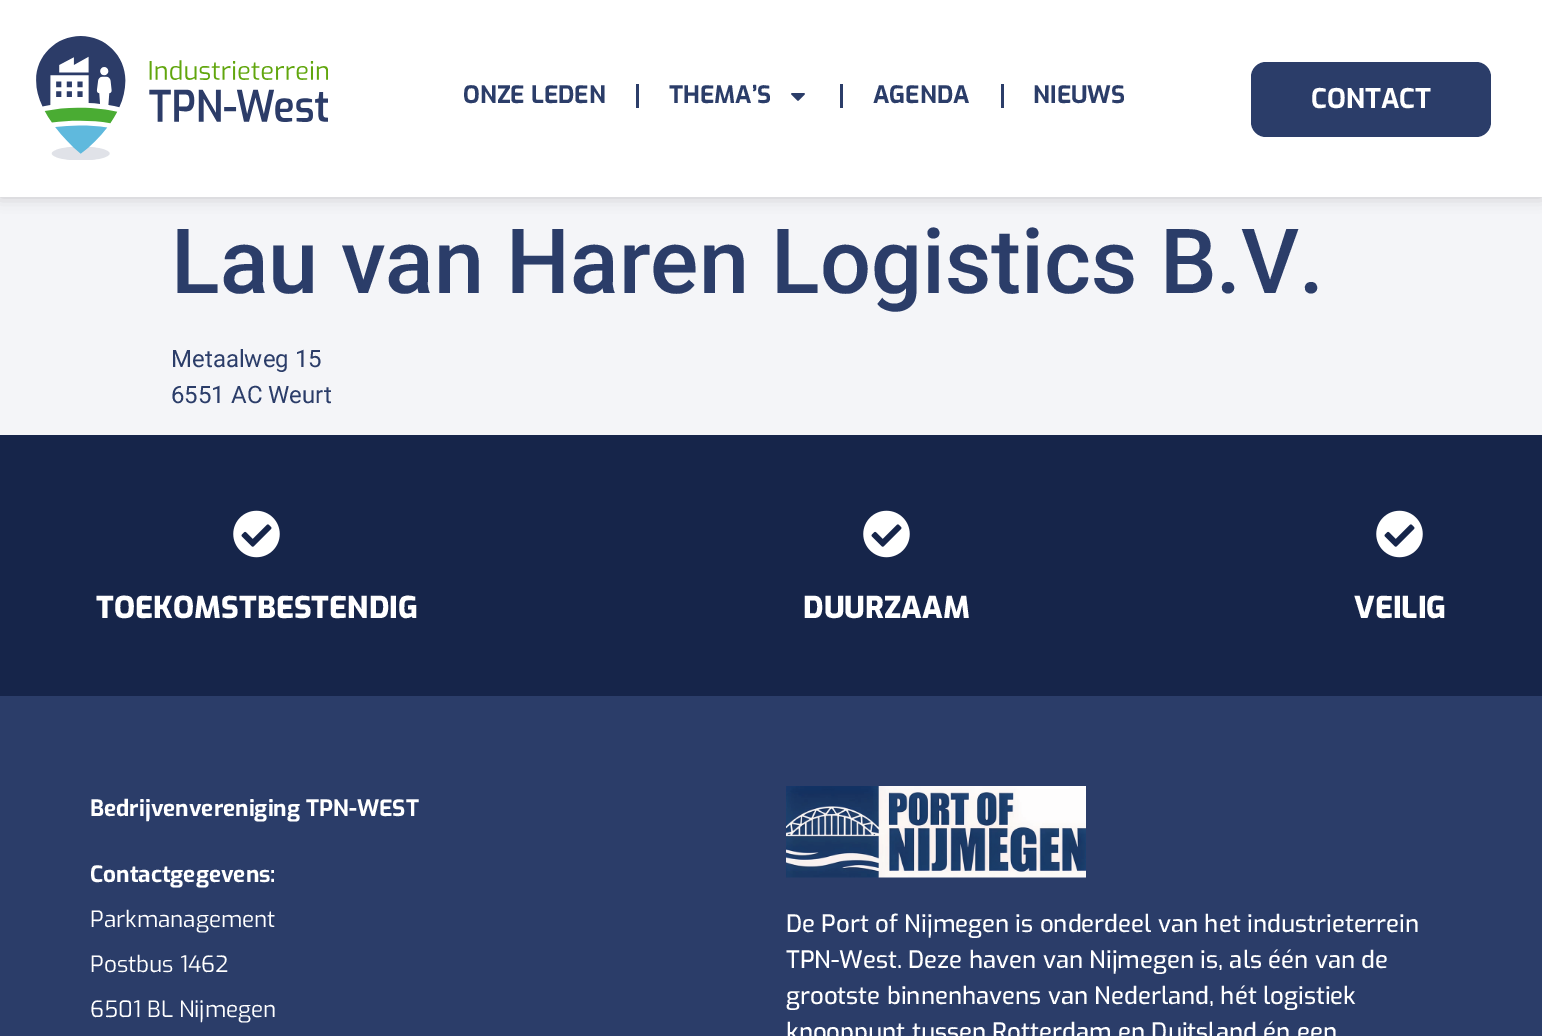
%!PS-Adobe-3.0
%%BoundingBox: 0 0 1542 1036
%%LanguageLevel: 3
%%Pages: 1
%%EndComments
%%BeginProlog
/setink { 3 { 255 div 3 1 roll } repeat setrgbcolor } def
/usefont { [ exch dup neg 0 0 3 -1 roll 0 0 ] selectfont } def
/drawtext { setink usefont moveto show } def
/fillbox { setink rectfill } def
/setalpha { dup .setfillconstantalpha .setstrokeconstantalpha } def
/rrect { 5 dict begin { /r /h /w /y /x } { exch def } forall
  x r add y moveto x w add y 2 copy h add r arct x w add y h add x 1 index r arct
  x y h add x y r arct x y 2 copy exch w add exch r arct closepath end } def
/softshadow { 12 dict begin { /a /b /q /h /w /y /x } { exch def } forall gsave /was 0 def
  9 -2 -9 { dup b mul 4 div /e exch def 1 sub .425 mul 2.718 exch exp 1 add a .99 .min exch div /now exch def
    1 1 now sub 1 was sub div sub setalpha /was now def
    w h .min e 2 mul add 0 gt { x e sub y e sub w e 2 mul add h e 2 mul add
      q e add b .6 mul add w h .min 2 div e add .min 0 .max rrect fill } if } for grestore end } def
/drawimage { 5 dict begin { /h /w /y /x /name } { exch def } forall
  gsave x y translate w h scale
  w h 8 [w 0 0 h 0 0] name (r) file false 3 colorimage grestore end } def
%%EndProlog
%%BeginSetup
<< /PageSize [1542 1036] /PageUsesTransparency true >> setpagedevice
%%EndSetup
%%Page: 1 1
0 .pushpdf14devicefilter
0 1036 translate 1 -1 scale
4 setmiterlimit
0 0 1542 1036 244 245 248 fillbox
0 0 0 setink
0 0 1542 197 0 7.5 0.19 softshadow
0 0 1542 197 255 255 255 fillbox
(assets/img1.rgb) 36 36 292 124 drawimage
(ONZE LEDEN) 463 103 /Exo-Bold 24 43 61 105 drawtext
636 84 3 24 43 61 105 fillbox
(THEMA’S) 669 103 /Exo-Bold 24 43 61 105 drawtext
(assets/img2.rgb) 791 93 14 8 drawimage
840 84 3 24 43 61 105 fillbox
(AGENDA) 873 103 /Exo-Bold 24 43 61 105 drawtext
1001 84 3 24 43 61 105 fillbox
(NIEUWS) 1033 103 /Exo-Bold 24 43 61 105 drawtext
1251 62 240 75 15 rrect fill
(CONTACT) 1311 108 /Exo-Bold 27 255 255 255 drawtext
(Lau van Haren Logistics B.V.) 171 293 /Roboto-Medium 90 43 61 105 drawtext
(Metaalweg 15) 171 367 /Roboto-Regular 24 43 61 105 drawtext
(6551 AC Weurt) 171 403 /Roboto-Regular 24 43 61 105 drawtext
0 435 1542 261 22 37 74 fillbox
(assets/img3.rgb) 233 510 47 48 drawimage
(TOEKOMSTBESTENDIG) 96 618 /Exo-ExtraBold 30 255 255 255 drawtext
(assets/img3.rgb) 863 510 47 48 drawimage
(DUURZAAM) 803 618 /Exo-ExtraBold 30 255 255 255 drawtext
(assets/img3.rgb) 1376 510 47 48 drawimage
(VEILIG) 1354 618 /Exo-ExtraBold 30 255 255 255 drawtext
0 696 1542 340 43 61 105 fillbox
(Bedrijvenvereniging TPN-WEST) 90 816 /Exo-Bold 22.5 255 255 255 drawtext
(Contactgegevens:) 90 882 /Exo-Bold 22.5 255 255 255 drawtext
(Parkmanagement) 90 927 /Exo-Regular 22.5 255 255 255 drawtext
(Postbus 1462) 90 972 /Exo-Regular 22.5 255 255 255 drawtext
(6501 BL Nijmegen) 90 1017 /Exo-Regular 22.5 255 255 255 drawtext
(assets/img4.rgb) 786 786 300 92 drawimage
(De Port of Nijmegen is onderdeel van het industrieterrein) 786 932 /Exo-Medium 24 255 255 255 drawtext
(TPN-West. Deze haven van Nijmegen is, als één van de) 786 968 /Exo-Medium 24 255 255 255 drawtext
(grootste binnenhavens van Nederland, hét logistiek) 786 1004 /Exo-Medium 24 255 255 255 drawtext
(knooppunt tussen Rotterdam en Duitsland én een) 786 1040 /Exo-Medium 24 255 255 255 drawtext
.poppdf14devicefilter showpage
%%EOF
